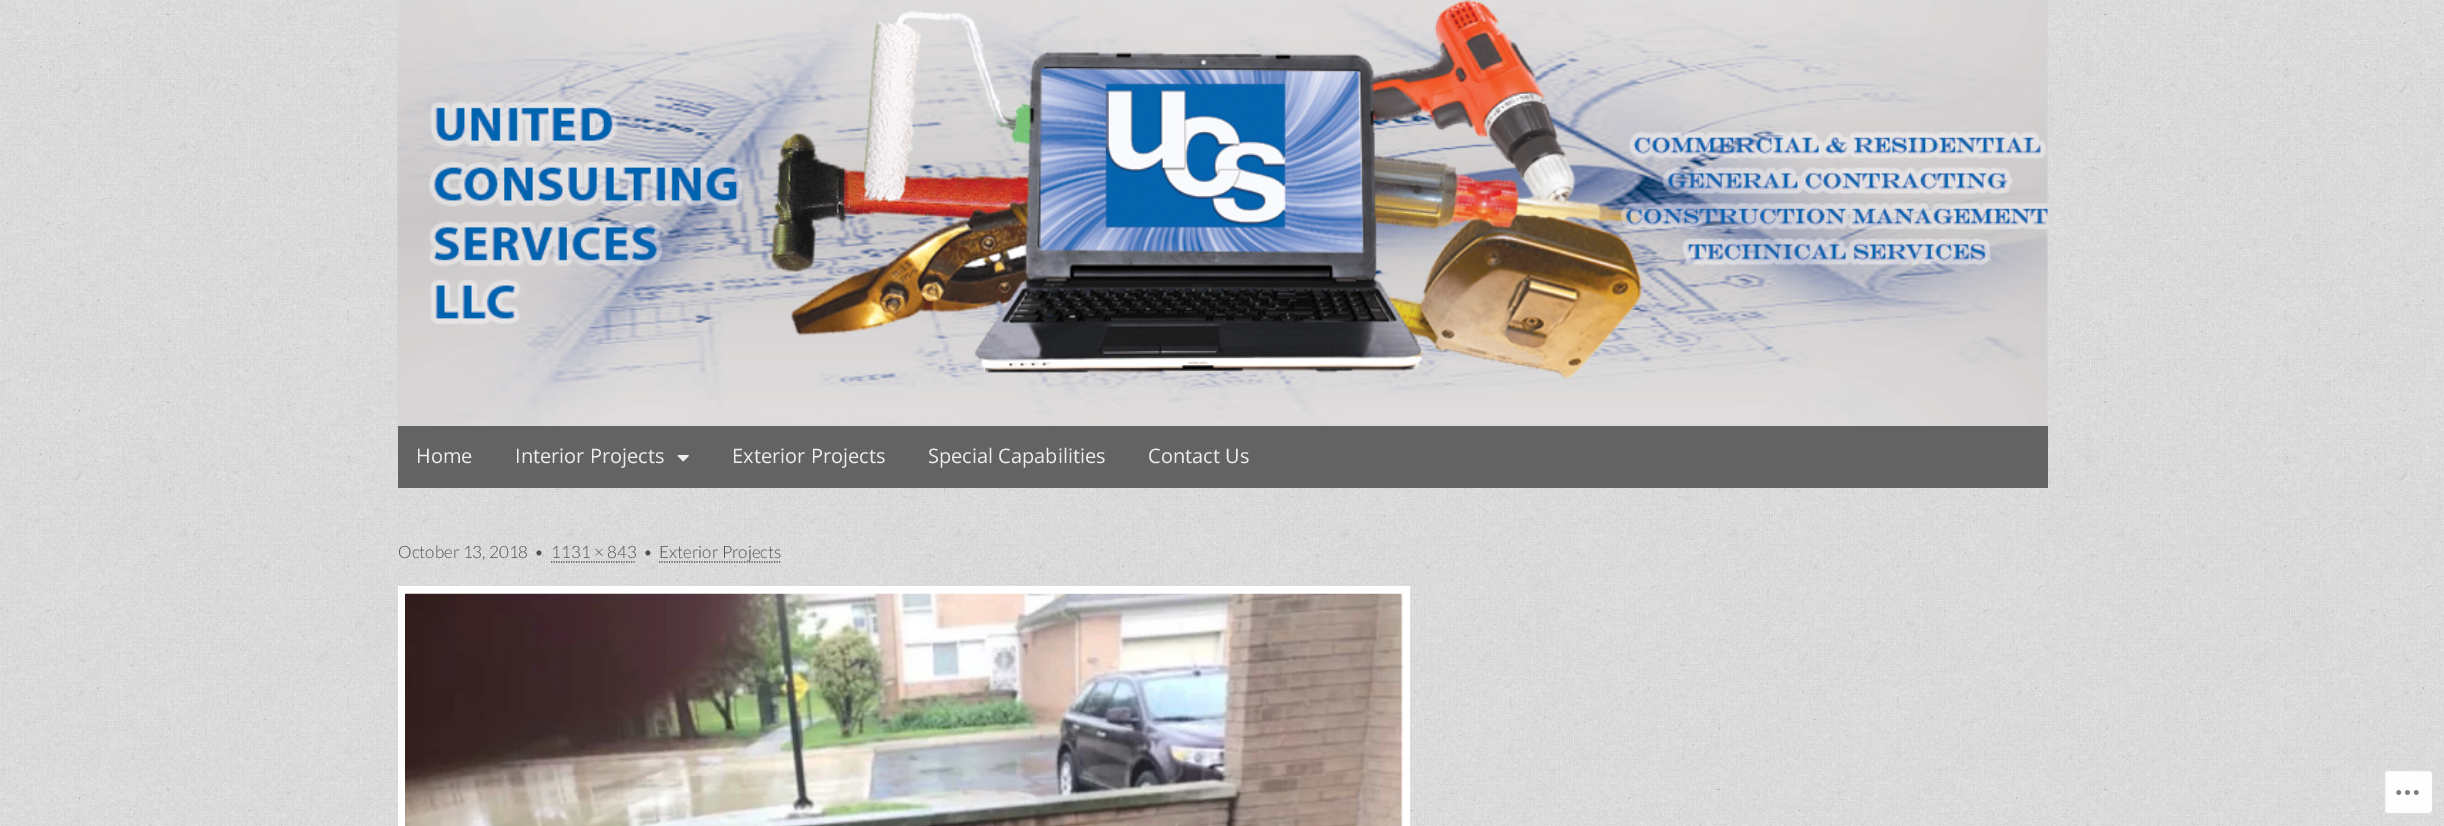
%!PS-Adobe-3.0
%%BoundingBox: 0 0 2444 826
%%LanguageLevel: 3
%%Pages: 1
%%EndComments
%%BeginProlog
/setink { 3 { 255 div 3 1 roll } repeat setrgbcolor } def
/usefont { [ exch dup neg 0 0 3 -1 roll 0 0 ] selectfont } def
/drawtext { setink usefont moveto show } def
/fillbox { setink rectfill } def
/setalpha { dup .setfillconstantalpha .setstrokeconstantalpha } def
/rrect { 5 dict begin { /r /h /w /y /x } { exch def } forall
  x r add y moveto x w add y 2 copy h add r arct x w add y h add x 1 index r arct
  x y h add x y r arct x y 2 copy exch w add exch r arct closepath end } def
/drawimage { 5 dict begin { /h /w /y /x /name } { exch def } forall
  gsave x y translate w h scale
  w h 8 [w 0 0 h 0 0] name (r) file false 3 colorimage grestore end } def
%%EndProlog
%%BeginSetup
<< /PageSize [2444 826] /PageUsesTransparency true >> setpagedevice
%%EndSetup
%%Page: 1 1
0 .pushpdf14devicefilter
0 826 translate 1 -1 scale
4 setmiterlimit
0 0 2444 826 255 255 255 fillbox
(assets/img1.rgb) 0 0 2444 826 drawimage
(assets/img2.rgb) 397 0 1651 427 drawimage
398 426 1650 62 99 99 99 fillbox
(Home) 416 463 /OpenSans-Regular 20 238 238 238 drawtext
(Interior Projects) 515 463 /OpenSans-Regular 20 238 238 238 drawtext
(assets/img3.rgb) 677 455 12 7 drawimage
(Exterior Projects) 732 463 /OpenSans-Regular 20 238 238 238 drawtext
(Special Capabilities) 928 463 /OpenSans-Regular 20 238 238 238 drawtext
(Contact Us) 1148 463 /OpenSans-Regular 20 238 238 238 drawtext
(October 13, 2018) 398 558 /Lato-Light 17 79 79 79 drawtext
(•) 534 558 /Lato-Light 17 79 79 79 drawtext
(1131 × 843) 551 558 /Lato-Light 17 79 79 79 drawtext
1.2 setlinewidth
[1.25 1.25] 0 setdash
551 562 moveto 636 562 lineto stroke
(•) 643 558 /Lato-Light 17 79 79 79 drawtext
659 562 moveto 781 562 lineto stroke
(Exterior Projects) 659 558 /Lato-Light 17 79 79 79 drawtext
398 586 1012 240 255 255 255 fillbox
(assets/img4.rgb) 405 593 998 233 drawimage
0.98 setalpha
2384 770 49 44 4 rrect fill
220 220 222 setink
1 setlinewidth
[] 0 setdash
2384.5 770.5 48 43 3.5 rrect stroke
1 setalpha
(assets/img5.rgb) 2396 790 23 5 drawimage
.poppdf14devicefilter showpage
%%EOF
